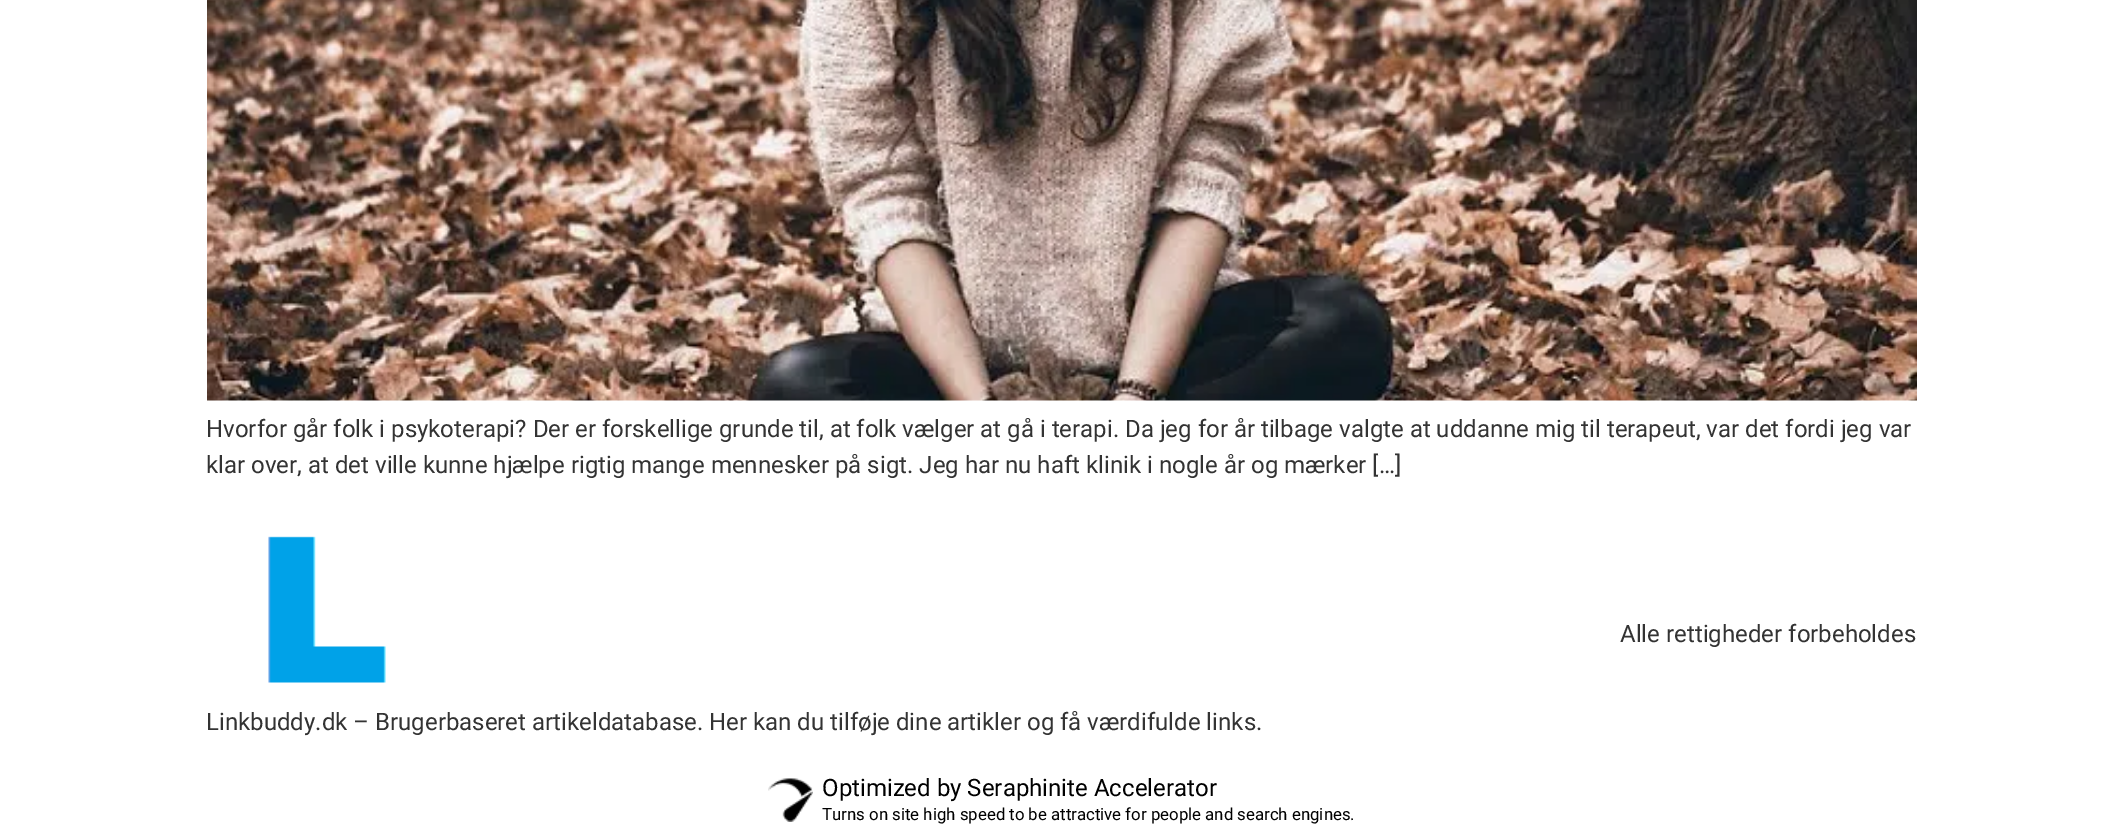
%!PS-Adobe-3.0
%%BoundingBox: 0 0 2122 836
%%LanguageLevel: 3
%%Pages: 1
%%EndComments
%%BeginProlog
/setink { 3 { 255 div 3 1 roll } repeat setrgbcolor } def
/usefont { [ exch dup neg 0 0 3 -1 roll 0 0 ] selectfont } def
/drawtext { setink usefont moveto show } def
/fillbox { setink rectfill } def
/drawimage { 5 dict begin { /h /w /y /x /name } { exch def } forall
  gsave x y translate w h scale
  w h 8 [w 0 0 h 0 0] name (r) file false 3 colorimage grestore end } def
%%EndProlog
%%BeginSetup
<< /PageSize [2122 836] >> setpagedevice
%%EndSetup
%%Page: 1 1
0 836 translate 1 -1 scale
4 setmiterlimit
0 0 2122 836 255 255 255 fillbox
(assets/img1.rgb) 207 0 1710 401 drawimage
(Hvorfor går folk i psykoterapi? Der er forskellige grunde til, at folk vælger at gå i terapi. Da jeg for år tilbage valgte at uddanne mig til terapeut, var det fordi jeg var) 206 437 /Roboto-Regular 24 51 51 51 drawtext
(klar over, at det ville kunne hjælpe rigtig mange mennesker på sigt. Jeg har nu haft klinik i nogle år og mærker […]) 206 473 /Roboto-Regular 24 51 51 51 drawtext
(Alle rettigheder forbeholdes) 1620 642 /Roboto-Regular 24 51 51 51 drawtext
(assets/img2.rgb) 268 536 118 147 drawimage
(Linkbuddy.dk – Brugerbaseret artikeldatabase. Her kan du tilføje dine artikler og få værdifulde links.) 206 730 /Roboto-Regular 24 51 51 51 drawtext
(assets/img3.rgb) 768 778 45 44 drawimage
(Optimized by Seraphinite Accelerator) 822 796 /Roboto-Regular 24 0 0 0 drawtext
(Turns on site high speed to be attractive for people and search engines.) 822 820 /Roboto-Regular 16.8 0 0 0 drawtext
showpage
%%EOF
